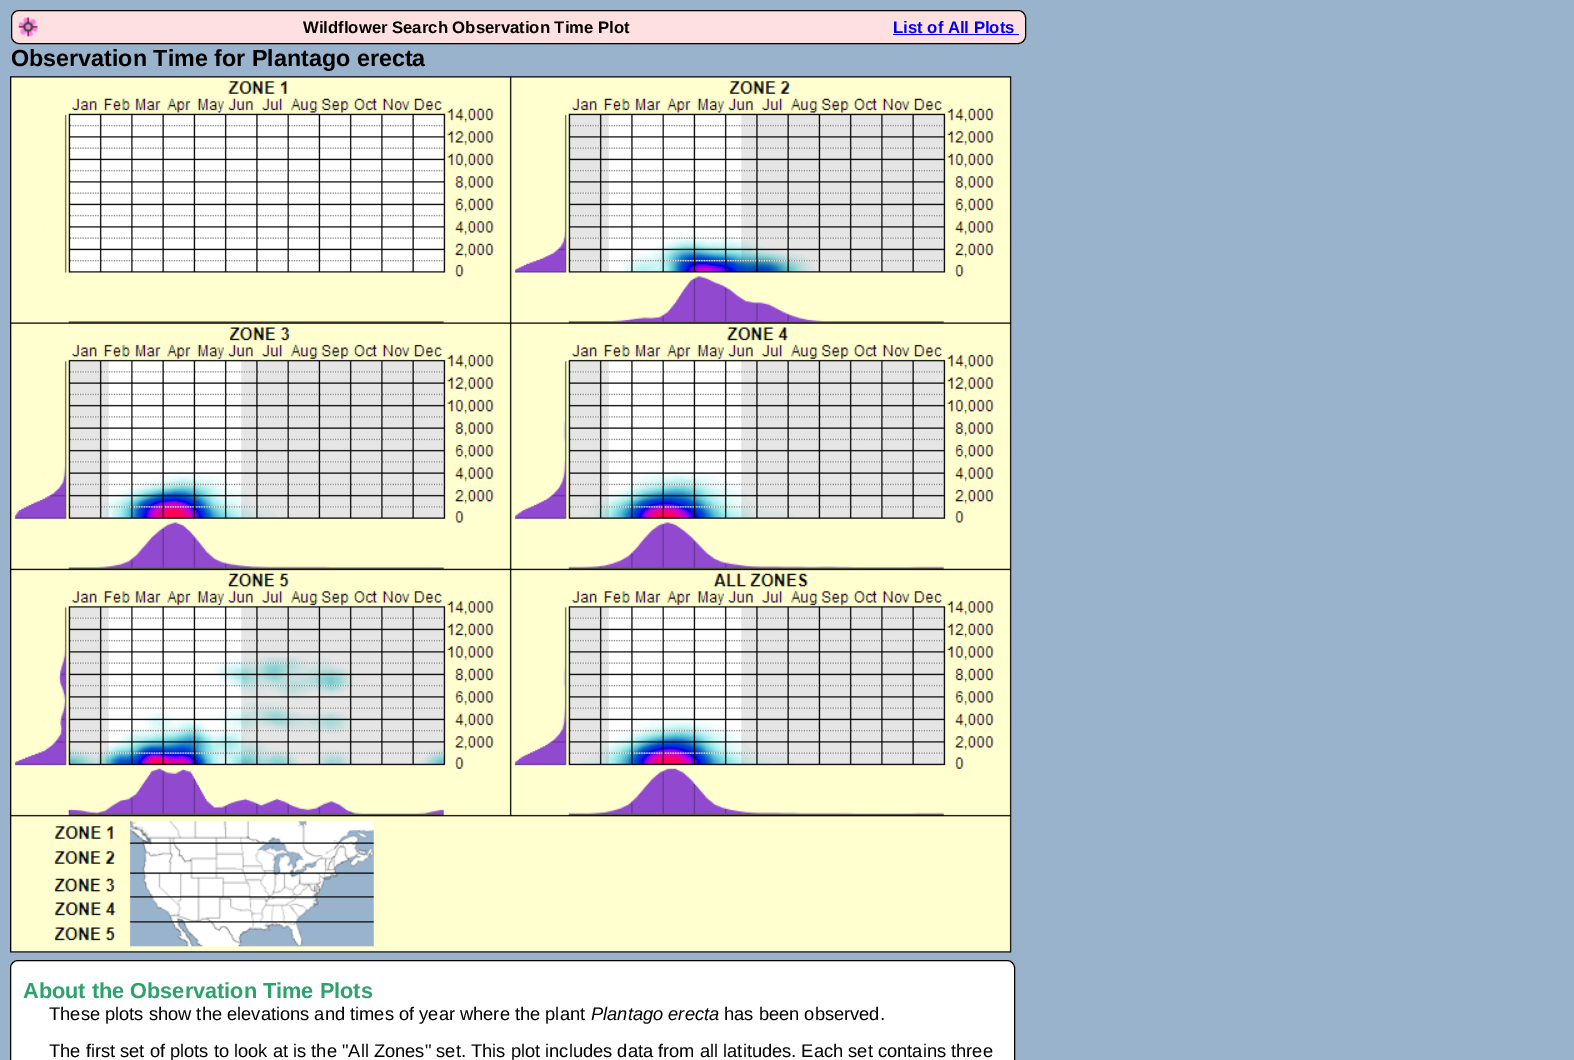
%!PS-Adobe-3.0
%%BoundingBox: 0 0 1574 1060
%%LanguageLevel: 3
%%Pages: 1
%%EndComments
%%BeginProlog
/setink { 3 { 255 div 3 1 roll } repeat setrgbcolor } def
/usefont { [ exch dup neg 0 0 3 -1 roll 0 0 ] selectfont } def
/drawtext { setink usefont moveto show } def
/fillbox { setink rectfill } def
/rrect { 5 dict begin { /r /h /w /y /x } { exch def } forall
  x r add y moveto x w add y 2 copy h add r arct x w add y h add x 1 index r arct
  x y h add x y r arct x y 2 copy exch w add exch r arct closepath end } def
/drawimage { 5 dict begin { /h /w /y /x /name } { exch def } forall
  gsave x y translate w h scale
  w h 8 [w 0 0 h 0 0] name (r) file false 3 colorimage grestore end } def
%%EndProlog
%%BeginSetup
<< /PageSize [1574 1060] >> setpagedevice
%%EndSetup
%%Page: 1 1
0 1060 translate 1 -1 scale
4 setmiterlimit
0 0 1574 1060 153 179 204 fillbox
255 224 224 setink
11.5 10.5 1014 33 7.5 rrect gsave fill grestore
0 0 0 setink
stroke
(assets/img1.rgb) 18 17 20 20 drawimage
(Wildflower Search Observation Time Plot) 303 33 /LiberationSans-Bold 16.7 0 0 0 drawtext
(List of All Plots) 893 33 /LiberationSans-Bold 16.7 0 0 238 drawtext
893 34 126 1 0 0 238 fillbox
(Observation Time for Plantago erecta) 11 66 /LiberationSans-Bold 23.3 0 0 0 drawtext
(assets/img2.rgb) 10 76 1002 877 drawimage
255 255 255 setink
10.5 960.5 1004 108 7.5 rrect gsave fill grestore
0 0 0 setink
stroke
(About the Observation Time Plots) 23 998 /LiberationSans-Bold 21.7 47 161 109 drawtext
(These plots show the elevations and times of year where the plant) 49 1020 /LiberationSans-Regular 18.3 0 0 0 drawtext
(Plantago erecta) 591 1020 /LiberationSans-Italic 18.3 0 0 0 drawtext
(has been observed.) 724 1020 /LiberationSans-Regular 18.3 0 0 0 drawtext
(The first set of plots to look at is the "All Zones" set.) 49 1057 /LiberationSans-Regular 18.3 0 0 0 drawtext
(This plot includes data from all latitudes. Each set contains three) 471 1057 /LiberationSans-Regular 18.3 0 0 0 drawtext
showpage
%%EOF
